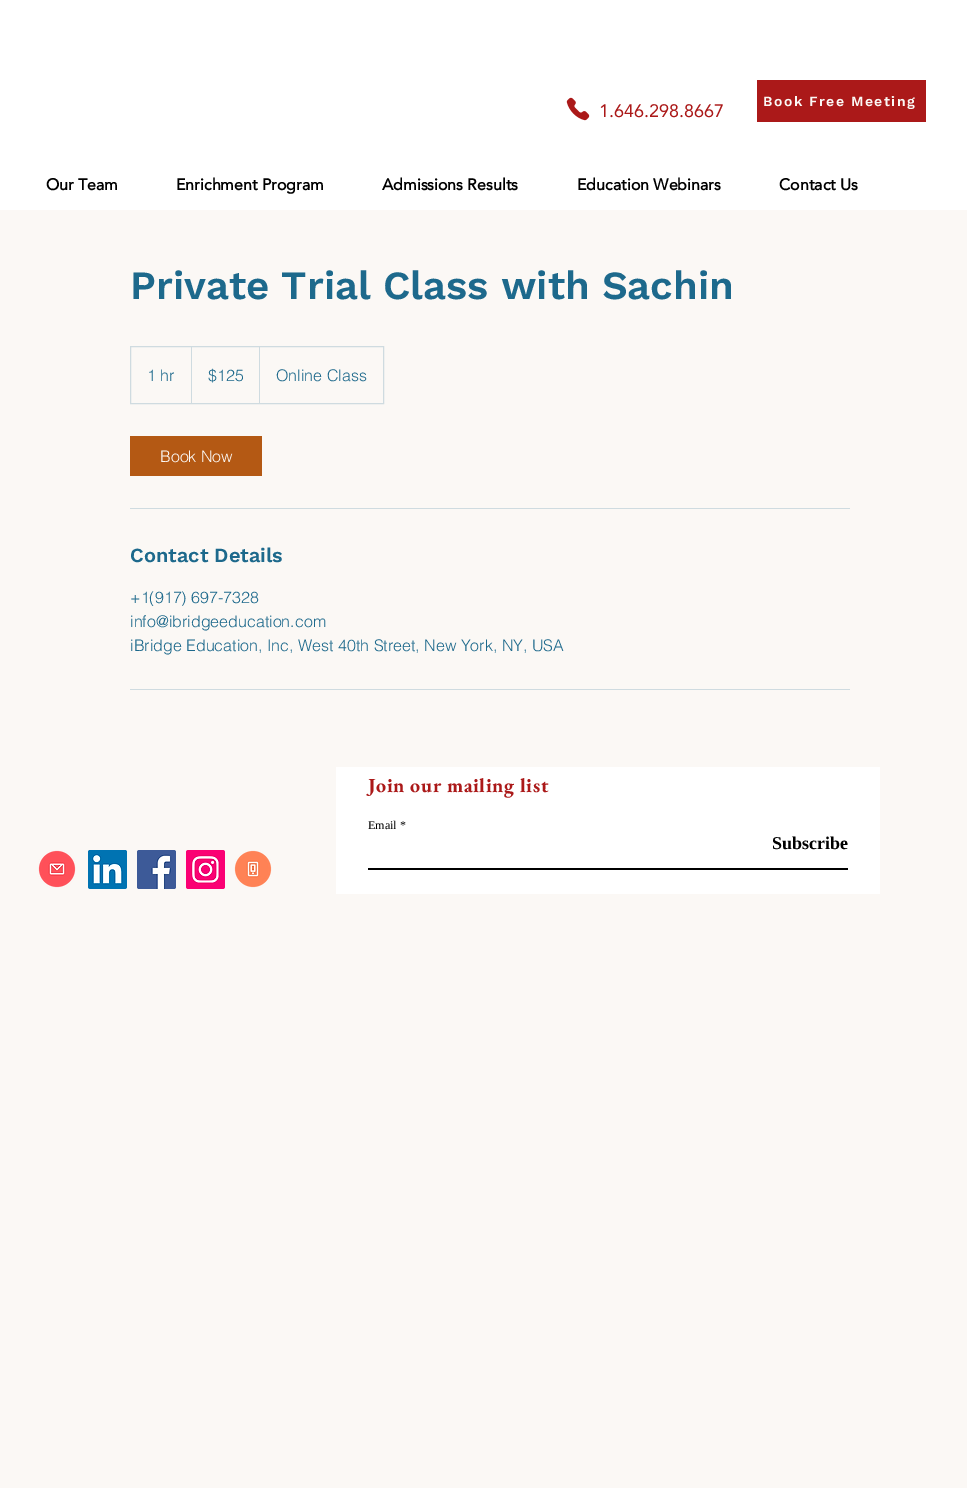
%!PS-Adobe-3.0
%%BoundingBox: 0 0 967 1488
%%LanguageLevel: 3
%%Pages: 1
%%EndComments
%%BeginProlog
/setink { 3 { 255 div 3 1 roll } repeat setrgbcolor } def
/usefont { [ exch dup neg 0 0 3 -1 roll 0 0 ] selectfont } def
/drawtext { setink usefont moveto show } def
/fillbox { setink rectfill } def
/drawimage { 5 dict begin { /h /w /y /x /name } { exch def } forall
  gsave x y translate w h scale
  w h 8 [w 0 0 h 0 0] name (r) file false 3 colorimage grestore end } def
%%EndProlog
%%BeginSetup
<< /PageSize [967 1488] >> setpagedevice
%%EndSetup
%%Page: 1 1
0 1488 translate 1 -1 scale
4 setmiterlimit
0 0 967 1488 251 248 245 fillbox
0 0 967 210 255 255 255 fillbox
(assets/img1.rgb) 566 97 24 24 drawimage
(1.646.298.8667) 599 117 /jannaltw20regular-Regular 18 171 25 25 drawtext
757 80 169 42 171 25 25 fillbox
/WorkSans-SemiBold 14 usefont
251 248 245 setink
763 106 moveto 1.4 0 (Book Free Meeting) ashow
(Our Team) 46 190 /jannaltw20regular-Bold 16 0 0 0 drawtext
(Enrichment Program) 176 190 /jannaltw20regular-Bold 16 0 0 0 drawtext
(Admissions Results) 382 190 /jannaltw20regular-Bold 16 0 0 0 drawtext
(Education Webinars) 577 190 /jannaltw20regular-Bold 16 0 0 0 drawtext
(Contact Us) 779 190 /jannaltw20regular-Bold 16 0 0 0 drawtext
(Private Trial Class with Sachin) 130 299 /WorkSans-SemiBold 40 29 105 140 drawtext
207 219 224 setink
130.5 346.5 253 57 rectstroke
(1 hr) 147 381 /helvetica-Light 16 29 105 140 drawtext
207 219 224 setink
191 403 moveto 191 346 lineto 192 347 lineto 192 403 lineto closepath fill
($125) 208 381 /helvetica-Light 16 29 105 140 drawtext
207 219 224 setink
259 403 moveto 259 346 lineto 260 347 lineto 260 403 lineto closepath fill
(Online Class) 276 381 /helvetica-Light 16 29 105 140 drawtext
130 436 132 40 180 89 20 fillbox
(Book Now) 160 462 /helvetica-Light 16 251 248 245 drawtext
130 508 720 1 207 219 224 fillbox
(Contact Details) 130 562 /WorkSans-SemiBold 20 29 105 140 drawtext
(+1\(917\) 697-7328) 130 603 /helvetica-Light 16 29 105 140 drawtext
(info@ibridgeeducation.com) 130 627 /helvetica-Light 16 29 105 140 drawtext
(iBridge Education, Inc, West 40th Street, New York, NY, USA) 130 651 /helvetica-Light 16 29 105 140 drawtext
130 689 720 1 207 219 224 fillbox
336 767 544 127 255 255 255 fillbox
/EBGaramond-Bold 20 usefont
171 25 25 setink
368 792 moveto 0.6 0 (Join our mailing list) ashow
(Email *) 368 829 /LiberationSerif-Regular 12 0 0 0 drawtext
368 868 480 2 0 0 0 fillbox
(Subscribe) 772 849 /LiberationSerif-Bold 18 0 0 0 drawtext
(assets/img2.rgb) 38 850 38 38 drawimage
(assets/img3.rgb) 88 850 39 39 drawimage
(assets/img4.rgb) 137 850 39 39 drawimage
(assets/img5.rgb) 186 850 39 39 drawimage
(assets/img6.rgb) 234 850 38 38 drawimage
showpage
%%EOF
